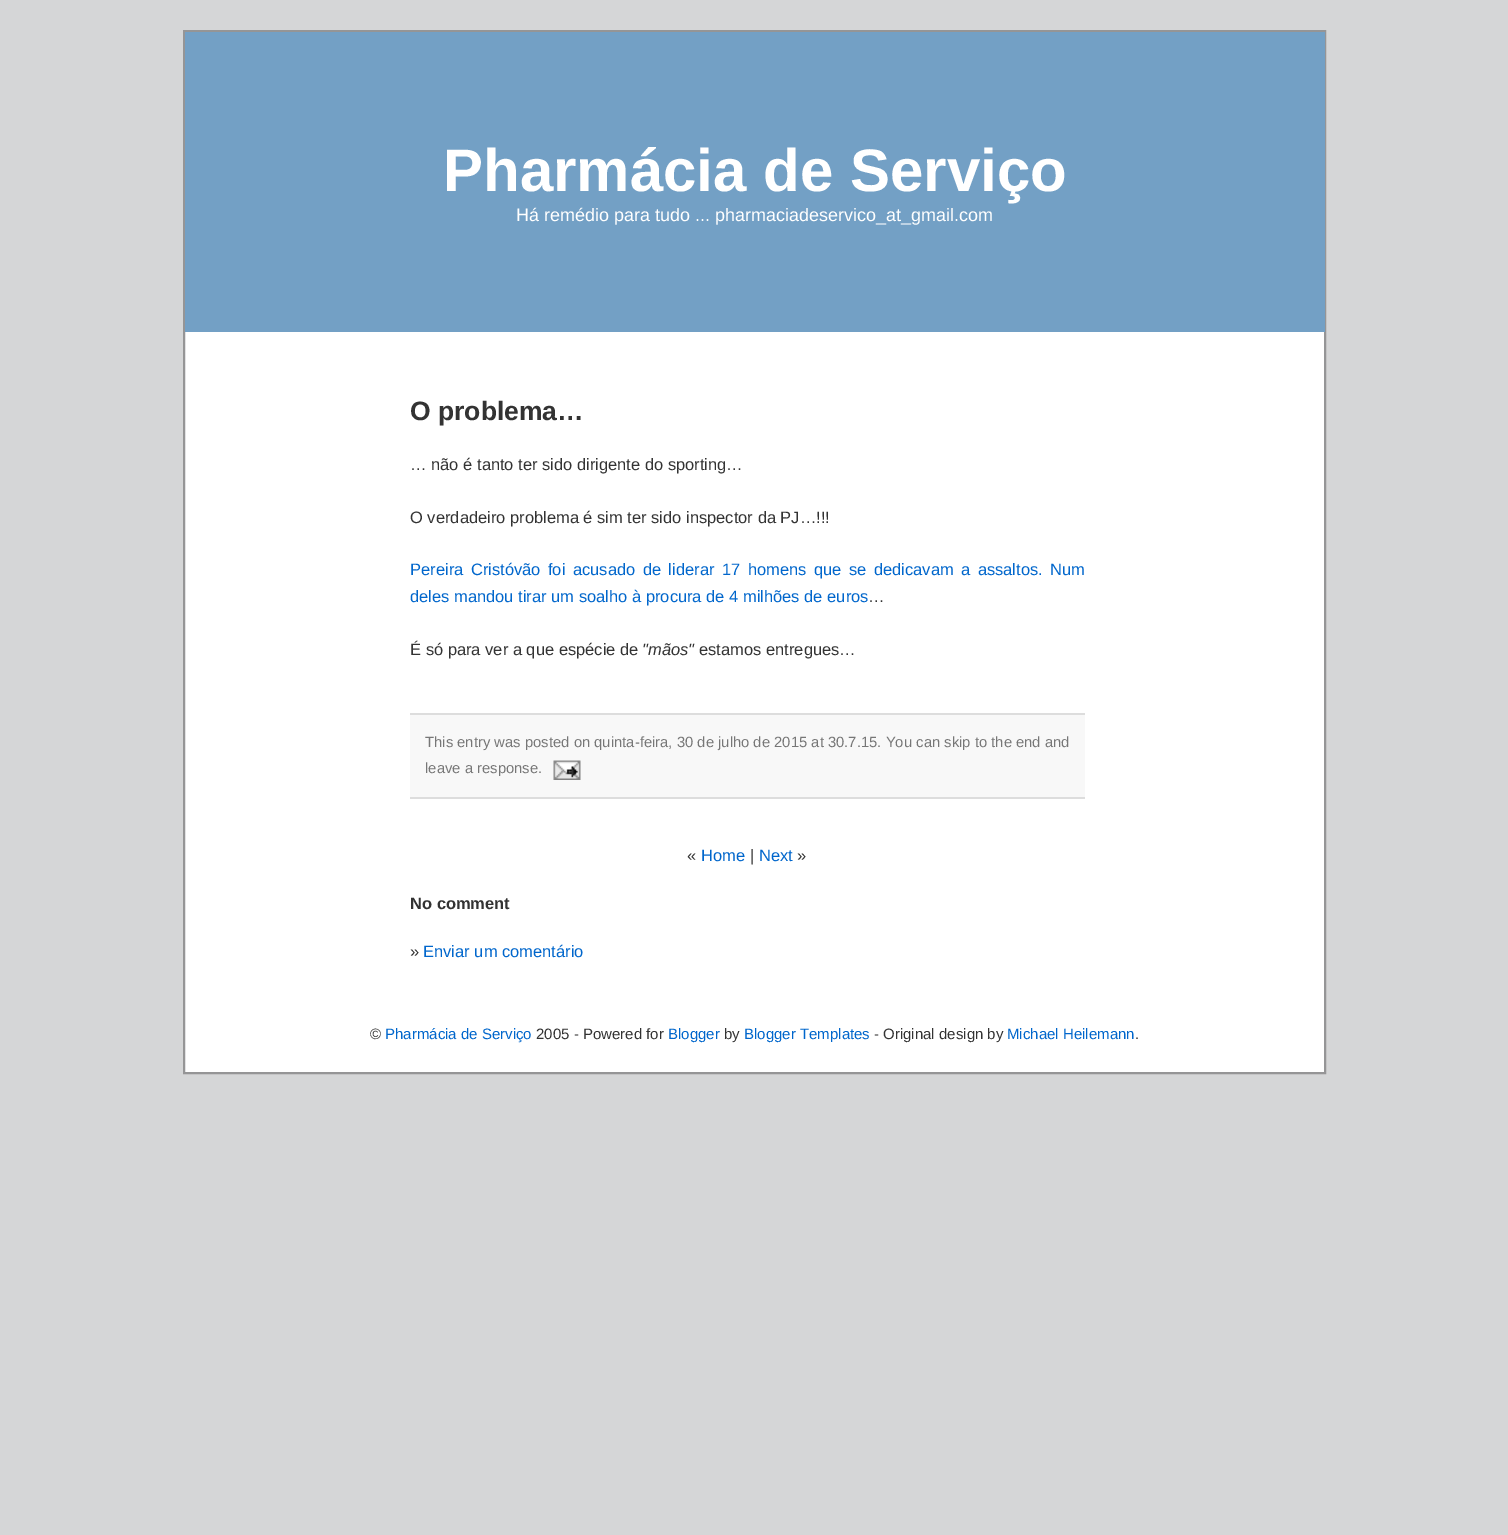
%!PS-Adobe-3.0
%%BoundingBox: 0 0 1508 1535
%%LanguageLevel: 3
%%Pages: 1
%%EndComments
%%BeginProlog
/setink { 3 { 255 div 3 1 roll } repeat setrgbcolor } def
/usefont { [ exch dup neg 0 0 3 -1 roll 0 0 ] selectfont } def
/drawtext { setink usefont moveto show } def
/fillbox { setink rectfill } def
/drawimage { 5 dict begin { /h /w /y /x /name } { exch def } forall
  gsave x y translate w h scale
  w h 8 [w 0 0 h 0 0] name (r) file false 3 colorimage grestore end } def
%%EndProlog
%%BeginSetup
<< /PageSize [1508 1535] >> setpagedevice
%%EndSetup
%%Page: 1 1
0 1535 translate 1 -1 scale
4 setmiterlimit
0 0 1508 1535 213 214 215 fillbox
185 332 1139 740 255 255 255 fillbox
149 149 150 setink
2 setlinewidth
184 31 1141 1042 rectstroke
185 32 1140 300 115 160 197 fillbox
(Pharmácia de Serviço) 443 191 /LiberationSans-Bold 60 255 255 255 drawtext
(Há remédio para tudo ... pharmaciadeservico_at_gmail.com) 516 221 /LiberationSans-Regular 18 255 255 255 drawtext
(O problema…) 410 420 /LiberationSans-Bold 26.5 51 51 51 drawtext
(… não é tanto ter sido dirigente do sporting…) 410 470 /LiberationSans-Regular 16.5 51 51 51 drawtext
(O verdadeiro problema é sim ter sido inspector da PJ…!!!) 410 523 /LiberationSans-Regular 16.5 51 51 51 drawtext
0 102 204 setink
410 575 moveto 2.9 0 32 (Pereira Cristóvão foi acusado de liderar 17 homens que se dedicavam a assaltos. Num) widthshow
(deles mandou tirar um soalho à procura de 4 milhões de euros) 410 602 /LiberationSans-Regular 16.5 0 102 204 drawtext
(…) 868 602 /LiberationSans-Regular 16.5 51 51 51 drawtext
(É só para ver a que espécie de) 410 655 /LiberationSans-Regular 16.5 51 51 51 drawtext
("mãos") 642 655 /LiberationSans-Italic 16.5 51 51 51 drawtext
(estamos entregues…) 699 655 /LiberationSans-Regular 16.5 51 51 51 drawtext
410 715 675 82 248 248 248 fillbox
410 713 675 2 221 221 221 fillbox
410 797 675 2 221 221 221 fillbox
(This entry was posted on quinta-feira, 30 de julho de 2015 at 30.7.15. You can skip to the end and) 425 747 /LiberationSans-Regular 14.85 119 119 119 drawtext
(leave a response.) 425 773 /LiberationSans-Regular 14.85 119 119 119 drawtext
(assets/img1.rgb) 553 760 28 20 drawimage
(«) 687 861 /LiberationSans-Regular 16.5 51 51 51 drawtext
(Home) 701 861 /LiberationSans-Regular 16.5 0 102 204 drawtext
(|) 750 861 /LiberationSans-Regular 16.5 51 51 51 drawtext
(Next) 759 861 /LiberationSans-Regular 16.5 0 102 204 drawtext
(») 797 861 /LiberationSans-Regular 16.5 51 51 51 drawtext
(No comment) 410 909 /LiberationSans-Bold 16.5 51 51 51 drawtext
(») 410 957 /LiberationSans-Regular 16.5 51 51 51 drawtext
(Enviar um comentário) 423 957 /LiberationSans-Regular 16.5 0 102 204 drawtext
(©) 370 1039 /LiberationSans-Regular 15 51 51 51 drawtext
(Pharmácia de Serviço) 385 1039 /LiberationSans-Regular 15 0 102 204 drawtext
(2005 - Powered for) 536 1039 /LiberationSans-Regular 15 51 51 51 drawtext
(Blogger) 668 1039 /LiberationSans-Regular 15 0 102 204 drawtext
(by) 724 1039 /LiberationSans-Regular 15 51 51 51 drawtext
(Blogger Templates) 744 1039 /LiberationSans-Regular 15 0 102 204 drawtext
(- Original design by) 874 1039 /LiberationSans-Regular 15 51 51 51 drawtext
(Michael Heilemann) 1007 1039 /LiberationSans-Regular 15 0 102 204 drawtext
(.) 1135 1039 /LiberationSans-Regular 15 51 51 51 drawtext
showpage
%%EOF
